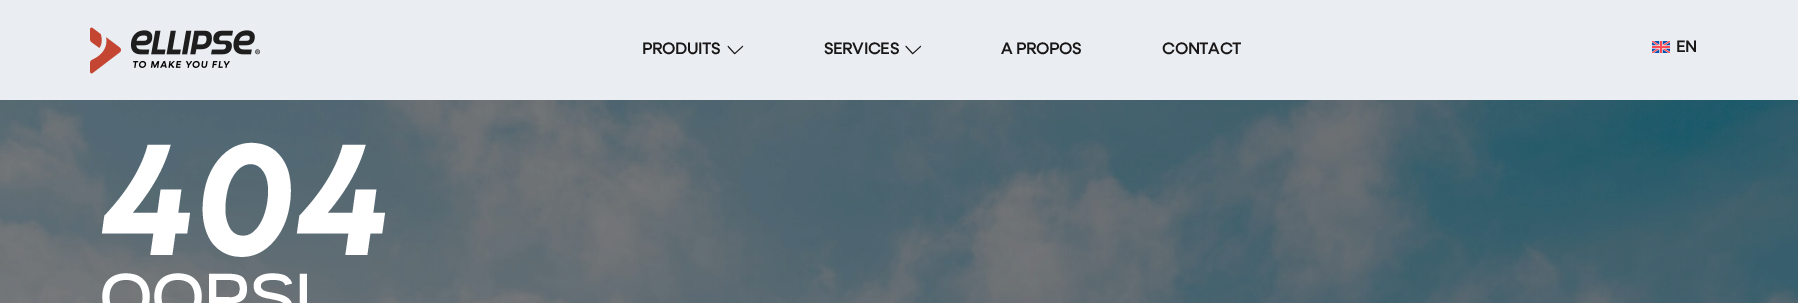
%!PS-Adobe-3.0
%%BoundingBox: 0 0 1798 303
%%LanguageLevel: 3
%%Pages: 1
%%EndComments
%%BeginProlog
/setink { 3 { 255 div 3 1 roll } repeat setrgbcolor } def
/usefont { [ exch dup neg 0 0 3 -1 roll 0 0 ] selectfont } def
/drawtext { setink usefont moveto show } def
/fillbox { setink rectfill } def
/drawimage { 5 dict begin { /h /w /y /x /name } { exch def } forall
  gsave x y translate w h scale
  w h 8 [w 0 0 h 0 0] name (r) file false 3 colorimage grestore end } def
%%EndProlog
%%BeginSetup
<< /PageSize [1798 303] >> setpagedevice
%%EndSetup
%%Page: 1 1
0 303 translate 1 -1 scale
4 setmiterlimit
0 0 1798 303 255 255 255 fillbox
0 0 1798 100 234 237 241 fillbox
(assets/img1.rgb) 90 27 170 47 drawimage
(PRODUITS) 642 54 /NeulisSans-Bold 16 25 23 23 drawtext
(assets/img2.rgb) 727 45 17 10 drawimage
(SERVICES) 824 54 /NeulisSans-Bold 16 25 23 23 drawtext
(assets/img3.rgb) 905 45 17 10 drawimage
(A PROPOS) 1001 54 /NeulisSans-Bold 16 25 23 23 drawtext
(CONTACT) 1162 54 /NeulisSans-Bold 16 25 23 23 drawtext
(assets/img4.rgb) 1652 41 18 12 drawimage
(EN) 1676 52 /NeulisSans-Bold 16 25 23 23 drawtext
(assets/img5.rgb) 0 100 1798 203 drawimage
(404) 100 255 /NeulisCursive-SemiBoldItalic 160 255 255 255 drawtext
(OOPS!) 100 320 /NataSans-SemiBold 70 255 255 255 drawtext
showpage
%%EOF
